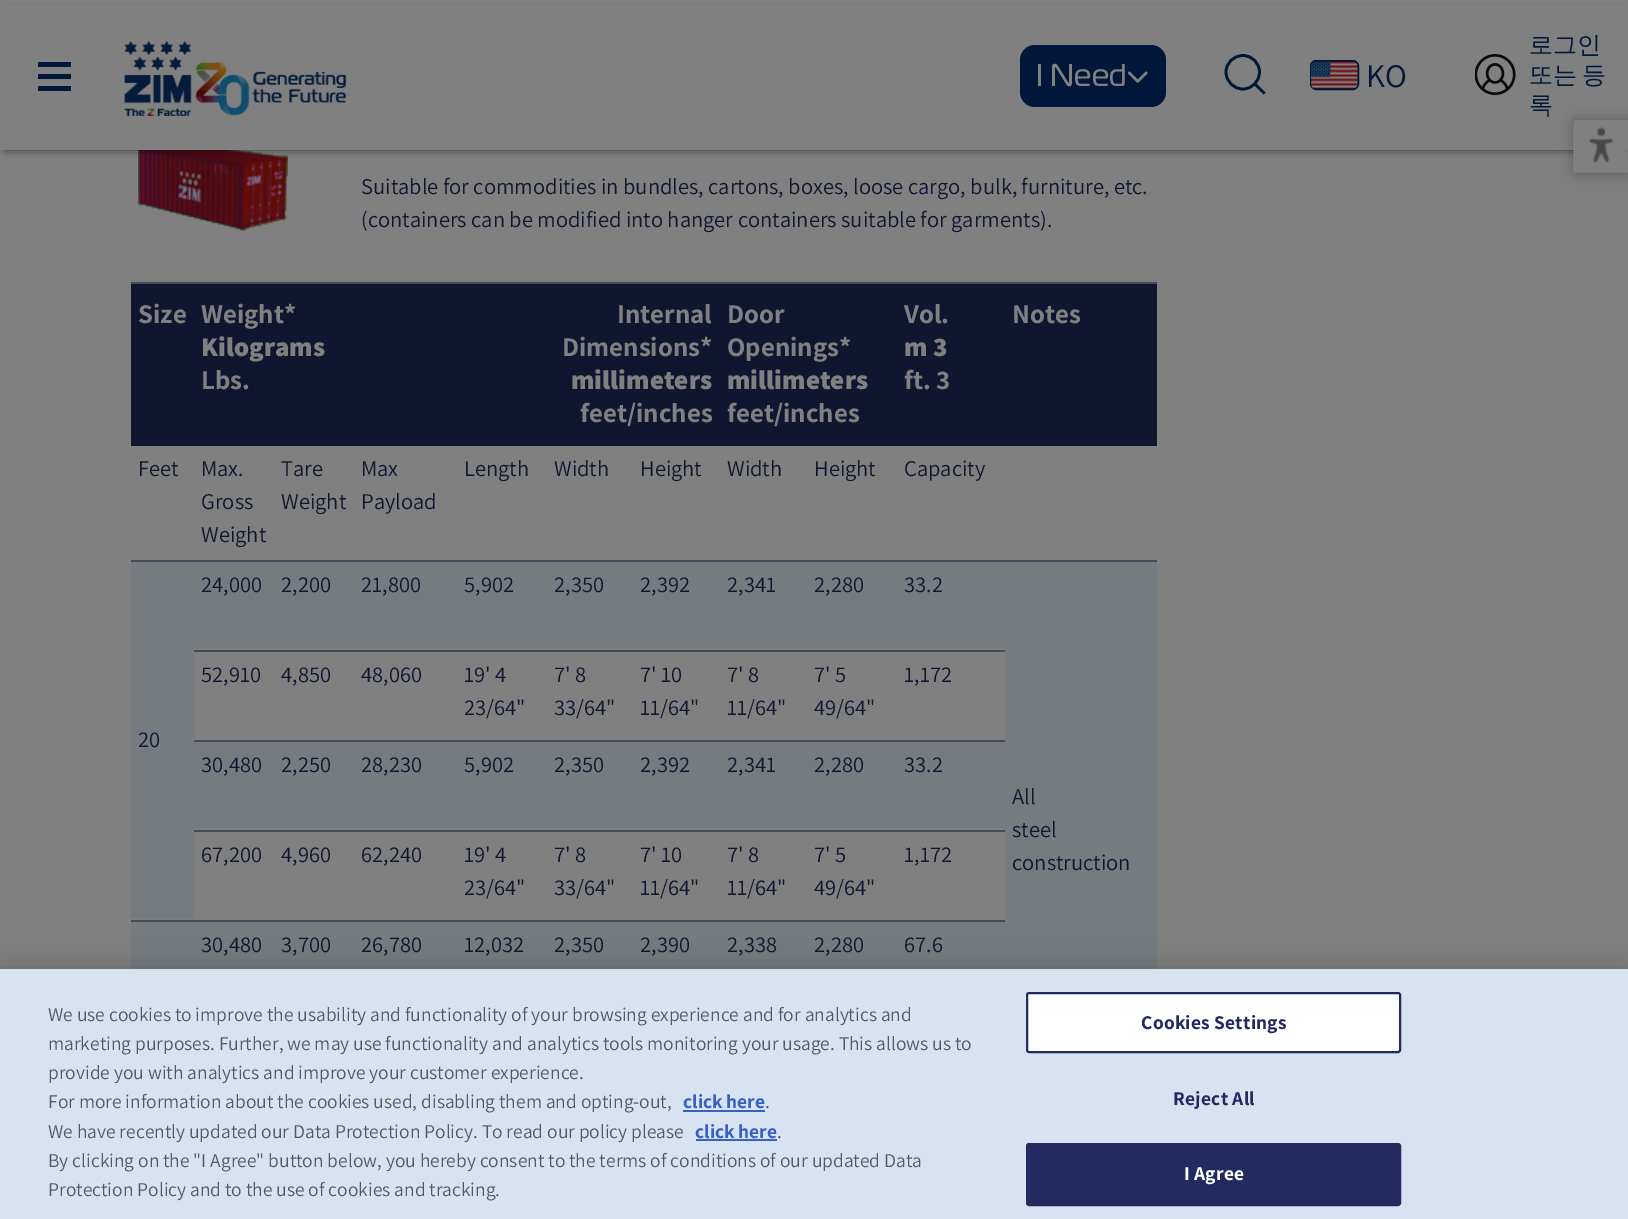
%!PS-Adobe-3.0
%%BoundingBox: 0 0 1628 1219
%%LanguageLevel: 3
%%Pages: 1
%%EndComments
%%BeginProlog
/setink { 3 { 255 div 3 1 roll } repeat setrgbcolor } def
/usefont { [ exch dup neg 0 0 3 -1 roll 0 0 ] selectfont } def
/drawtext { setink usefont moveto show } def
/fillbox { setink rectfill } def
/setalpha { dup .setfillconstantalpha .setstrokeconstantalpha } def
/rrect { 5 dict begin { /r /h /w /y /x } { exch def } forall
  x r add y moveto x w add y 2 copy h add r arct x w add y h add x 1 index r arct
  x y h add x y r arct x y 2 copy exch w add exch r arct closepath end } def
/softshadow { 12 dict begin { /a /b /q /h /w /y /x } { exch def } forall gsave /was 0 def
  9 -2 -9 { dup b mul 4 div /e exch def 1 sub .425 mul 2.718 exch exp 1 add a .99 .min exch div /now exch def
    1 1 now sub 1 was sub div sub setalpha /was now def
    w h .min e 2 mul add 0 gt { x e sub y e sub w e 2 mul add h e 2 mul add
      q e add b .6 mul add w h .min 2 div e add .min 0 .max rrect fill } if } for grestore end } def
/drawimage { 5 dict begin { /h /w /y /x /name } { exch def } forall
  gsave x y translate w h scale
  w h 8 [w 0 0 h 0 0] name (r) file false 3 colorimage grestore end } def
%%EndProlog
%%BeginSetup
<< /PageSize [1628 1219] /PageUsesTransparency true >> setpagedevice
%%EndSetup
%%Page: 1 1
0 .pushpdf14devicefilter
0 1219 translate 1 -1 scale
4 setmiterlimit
0 0 1628 1219 128 128 128 fillbox
(assets/img5.rgb) 138 150 150 81 drawimage
0 0 0 setink
6 12 1617 138 0 4 0.58 softshadow
0 5 1628 145 128 128 128 fillbox
38 62 33 5 0 23 57 fillbox
38 74 33 5 0 23 57 fillbox
38 86 33 5 0 23 57 fillbox
(assets/img1.rgb) 124 41 223 75 drawimage
1020 45 146 62 15 rrect fill
(I Need) 1036 86 /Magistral-Regular 31.5 128 128 128 drawtext
(assets/img2.rgb) 1127 71 21 12 drawimage
0 23 57 setink
2.7 setlinewidth
1 setlinejoin
1243 89 moveto 1252 89 1259.5 81.5 1259.5 72 curveto 1259.5 63 1252 55.5 1243 55.5 curveto 1233.5 55.5 1226 63 1226 72 curveto 1226 81.5 1233.5 89 1243 89 curveto closepath 1264.5 93.5 moveto 1255 84 lineto stroke
2 setlinewidth
0 setlinejoin
1311 61 47 28 5 rrect stroke
(assets/img3.rgb) 1311 61 47 28 drawimage
(KO) 1366 87 /Assistant-Regular 33 0 23 57 drawtext
(assets/img4.rgb) 1475 54 41 42 drawimage
(로그인) 1529 53 /WenQuanYiZenHei-Medium 24 0 23 57 drawtext
1529 83 moveto -2 0 32 (또는 등) widthshow
(록) 1529 113 /WenQuanYiZenHei-Medium 24 0 23 57 drawtext
131 282 1026 2 67 76 91 fillbox
(Suitable for commodities in bundles, cartons, boxes, loose cargo, bulk, furniture, etc.) 361 194 /Assistant-Regular 22.5 17 22 48 drawtext
(\(containers can be modified into hanger containers suitable for garments\).) 361 227 /Assistant-Regular 22.5 17 22 48 drawtext
131 284 1026 162 17 22 48 fillbox
(Size) 138 323 /Assistant-Bold 27 128 128 128 drawtext
(Weight*) 201 323 /Assistant-Bold 27 128 128 128 drawtext
(Kilograms) 201 356 /Assistant-ExtraBold 27 128 128 128 drawtext
(Lbs.) 201 389 /Assistant-Bold 27 128 128 128 drawtext
(Internal) 617 323 /Assistant-Bold 27 128 128 128 drawtext
(Dimensions*) 562 356 /Assistant-Bold 27 128 128 128 drawtext
(millimeters) 571 389 /Assistant-ExtraBold 27 128 128 128 drawtext
(feet/inches) 580 422 /Assistant-Bold 27 128 128 128 drawtext
(Door) 727 323 /Assistant-Bold 27 128 128 128 drawtext
(Openings*) 727 356 /Assistant-Bold 27 128 128 128 drawtext
(millimeters) 727 389 /Assistant-ExtraBold 27 128 128 128 drawtext
(feet/inches) 727 422 /Assistant-Bold 27 128 128 128 drawtext
(Vol.) 904 323 /Assistant-Bold 27 128 128 128 drawtext
(m 3) 904 356 /Assistant-ExtraBold 27 128 128 128 drawtext
(ft. 3) 904 389 /Assistant-Bold 27 128 128 128 drawtext
(Notes) 1012 323 /Assistant-Bold 27 128 128 128 drawtext
(Feet) 138 476 /Assistant-Regular 22.5 17 22 48 drawtext
(Max.) 201 476 /Assistant-Regular 22.5 17 22 48 drawtext
(Gross) 201 509 /Assistant-Regular 22.5 17 22 48 drawtext
(Weight) 201 542 /Assistant-Regular 22.5 17 22 48 drawtext
(Tare) 281 476 /Assistant-Regular 22.5 17 22 48 drawtext
(Weight) 281 509 /Assistant-Regular 22.5 17 22 48 drawtext
(Max) 361 476 /Assistant-Regular 22.5 17 22 48 drawtext
(Payload) 361 509 /Assistant-Regular 22.5 17 22 48 drawtext
(Length) 464 476 /Assistant-Regular 22.5 17 22 48 drawtext
(Width) 554 476 /Assistant-Regular 22.5 17 22 48 drawtext
(Height) 640 476 /Assistant-Regular 22.5 17 22 48 drawtext
(Width) 727 476 /Assistant-Regular 22.5 17 22 48 drawtext
(Height) 814 476 /Assistant-Regular 22.5 17 22 48 drawtext
(Capacity) 904 476 /Assistant-Regular 22.5 17 22 48 drawtext
131 560 1026 2 67 76 91 fillbox
194 562 811 86 117 123 126 fillbox
(24,000) 201 592 /Assistant-Regular 22.5 17 22 48 drawtext
(2,200) 281 592 /Assistant-Regular 22.5 17 22 48 drawtext
(21,800) 361 592 /Assistant-Regular 22.5 17 22 48 drawtext
(5,902) 464 592 /Assistant-Regular 22.5 17 22 48 drawtext
(2,350) 554 592 /Assistant-Regular 22.5 17 22 48 drawtext
(2,392) 640 592 /Assistant-Regular 22.5 17 22 48 drawtext
(2,341) 727 592 /Assistant-Regular 22.5 17 22 48 drawtext
(2,280) 814 592 /Assistant-Regular 22.5 17 22 48 drawtext
194 650 811 2 67 76 91 fillbox
(33.2) 904 592 /Assistant-Regular 22.5 17 22 48 drawtext
131 562 63 356 117 123 126 fillbox
(20) 138 747 /Assistant-Regular 22.5 17 22 48 drawtext
1005 562 152 407 117 123 126 fillbox
(All) 1012 804 /Assistant-Regular 22.5 17 22 48 drawtext
(steel) 1012 837 /Assistant-Regular 22.5 17 22 48 drawtext
(construction) 1012 870 /Assistant-Regular 22.5 17 22 48 drawtext
(52,910) 201 682 /Assistant-Regular 22.5 17 22 48 drawtext
(4,850) 281 682 /Assistant-Regular 22.5 17 22 48 drawtext
(48,060) 361 682 /Assistant-Regular 22.5 17 22 48 drawtext
(19' 4) 464 682 /Assistant-Regular 22.5 17 22 48 drawtext
(23/64") 464 715 /Assistant-Regular 22.5 17 22 48 drawtext
(7' 8) 554 682 /Assistant-Regular 22.5 17 22 48 drawtext
(33/64") 554 715 /Assistant-Regular 22.5 17 22 48 drawtext
(7' 10) 640 682 /Assistant-Regular 22.5 17 22 48 drawtext
(11/64") 640 715 /Assistant-Regular 22.5 17 22 48 drawtext
(7' 8) 727 682 /Assistant-Regular 22.5 17 22 48 drawtext
(11/64") 727 715 /Assistant-Regular 22.5 17 22 48 drawtext
(7' 5) 814 682 /Assistant-Regular 22.5 17 22 48 drawtext
(49/64") 814 715 /Assistant-Regular 22.5 17 22 48 drawtext
194 740 811 2 67 76 91 fillbox
(1,172) 904 682 /Assistant-Regular 22.5 17 22 48 drawtext
194 742 811 86 117 123 126 fillbox
(30,480) 201 772 /Assistant-Regular 22.5 17 22 48 drawtext
(2,250) 281 772 /Assistant-Regular 22.5 17 22 48 drawtext
(28,230) 361 772 /Assistant-Regular 22.5 17 22 48 drawtext
(5,902) 464 772 /Assistant-Regular 22.5 17 22 48 drawtext
(2,350) 554 772 /Assistant-Regular 22.5 17 22 48 drawtext
(2,392) 640 772 /Assistant-Regular 22.5 17 22 48 drawtext
(2,341) 727 772 /Assistant-Regular 22.5 17 22 48 drawtext
(2,280) 814 772 /Assistant-Regular 22.5 17 22 48 drawtext
194 830 811 2 67 76 91 fillbox
(33.2) 904 772 /Assistant-Regular 22.5 17 22 48 drawtext
(67,200) 201 862 /Assistant-Regular 22.5 17 22 48 drawtext
(4,960) 281 862 /Assistant-Regular 22.5 17 22 48 drawtext
(62,240) 361 862 /Assistant-Regular 22.5 17 22 48 drawtext
(19' 4) 464 862 /Assistant-Regular 22.5 17 22 48 drawtext
(23/64") 464 895 /Assistant-Regular 22.5 17 22 48 drawtext
(7' 8) 554 862 /Assistant-Regular 22.5 17 22 48 drawtext
(33/64") 554 895 /Assistant-Regular 22.5 17 22 48 drawtext
(7' 10) 640 862 /Assistant-Regular 22.5 17 22 48 drawtext
(11/64") 640 895 /Assistant-Regular 22.5 17 22 48 drawtext
(7' 8) 727 862 /Assistant-Regular 22.5 17 22 48 drawtext
(11/64") 727 895 /Assistant-Regular 22.5 17 22 48 drawtext
(7' 5) 814 862 /Assistant-Regular 22.5 17 22 48 drawtext
(49/64") 814 895 /Assistant-Regular 22.5 17 22 48 drawtext
131 920 874 2 67 76 91 fillbox
(1,172) 904 862 /Assistant-Regular 22.5 17 22 48 drawtext
131 922 874 47 117 123 126 fillbox
(30,480) 201 952 /Assistant-Regular 22.5 17 22 48 drawtext
(3,700) 281 952 /Assistant-Regular 22.5 17 22 48 drawtext
(26,780) 361 952 /Assistant-Regular 22.5 17 22 48 drawtext
(12,032) 464 952 /Assistant-Regular 22.5 17 22 48 drawtext
(2,350) 554 952 /Assistant-Regular 22.5 17 22 48 drawtext
(2,390) 640 952 /Assistant-Regular 22.5 17 22 48 drawtext
(2,338) 727 952 /Assistant-Regular 22.5 17 22 48 drawtext
(2,280) 814 952 /Assistant-Regular 22.5 17 22 48 drawtext
(67.6) 904 952 /Assistant-Regular 22.5 17 22 48 drawtext
gsave
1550 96 moveto 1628 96 lineto 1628 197 lineto 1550 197 lineto closepath 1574 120 moveto 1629 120 lineto 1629 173 lineto 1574 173 lineto closepath eoclip newpath
0 0 0 setink
1574 120 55 53 0 7.5 0.3 softshadow
grestore
(assets/img6.rgb) 1573 123 53 50 drawimage
0 0 0 setink
0 969 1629 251 0 13.5 0.2 softshadow
0 969 1628 250 216 227 242 fillbox
(We use cookies to improve the usability and functionality of your browsing experience and for analytics and) 48 1021 /Assistant-Regular 19.5 84 89 94 drawtext
(marketing purposes. Further, we may use functionality and analytics tools monitoring your usage. This allows us to) 48 1050 /Assistant-Regular 19.5 84 89 94 drawtext
(provide you with analytics and improve your customer experience.) 48 1079 /Assistant-Regular 19.5 84 89 94 drawtext
(For more information about the cookies used, disabling them and opting-out,) 48 1108 /Assistant-Regular 19.5 84 89 94 drawtext
(click here) 683 1108 /Assistant-Bold 19.5 56 96 190 drawtext
683 1110 82 2 56 96 190 fillbox
(.) 765 1108 /Assistant-Regular 19.5 84 89 94 drawtext
(We have recently updated our Data Protection Policy. To read our policy please) 48 1138 /Assistant-Regular 19.5 84 89 94 drawtext
(click here) 695 1138 /Assistant-Bold 19.5 56 96 190 drawtext
696 1139 81 2 56 96 190 fillbox
(.) 777 1138 /Assistant-Regular 19.5 84 89 94 drawtext
(By clicking on the "I Agree" button below, you hereby consent to the terms of conditions of our updated Data) 48 1167 /Assistant-Regular 19.5 84 89 94 drawtext
(Protection Policy and to the use of cookies and tracking.) 48 1196 /Assistant-Regular 19.5 84 89 94 drawtext
255 255 255 setink
1027 993 373 59 2 rrect gsave fill grestore
33 43 96 setink
stroke
/Assistant-Bold 19.5 usefont
1141 1029 moveto 0.25 0 (Cookies Settings) ashow
1173 1105 moveto 0.25 0 (Reject All) ashow
1027 1144 373 61 2 rrect gsave fill grestore
stroke
255 255 255 setink
1184 1180 moveto 0.25 0 (I Agree) ashow
.poppdf14devicefilter showpage
%%EOF
